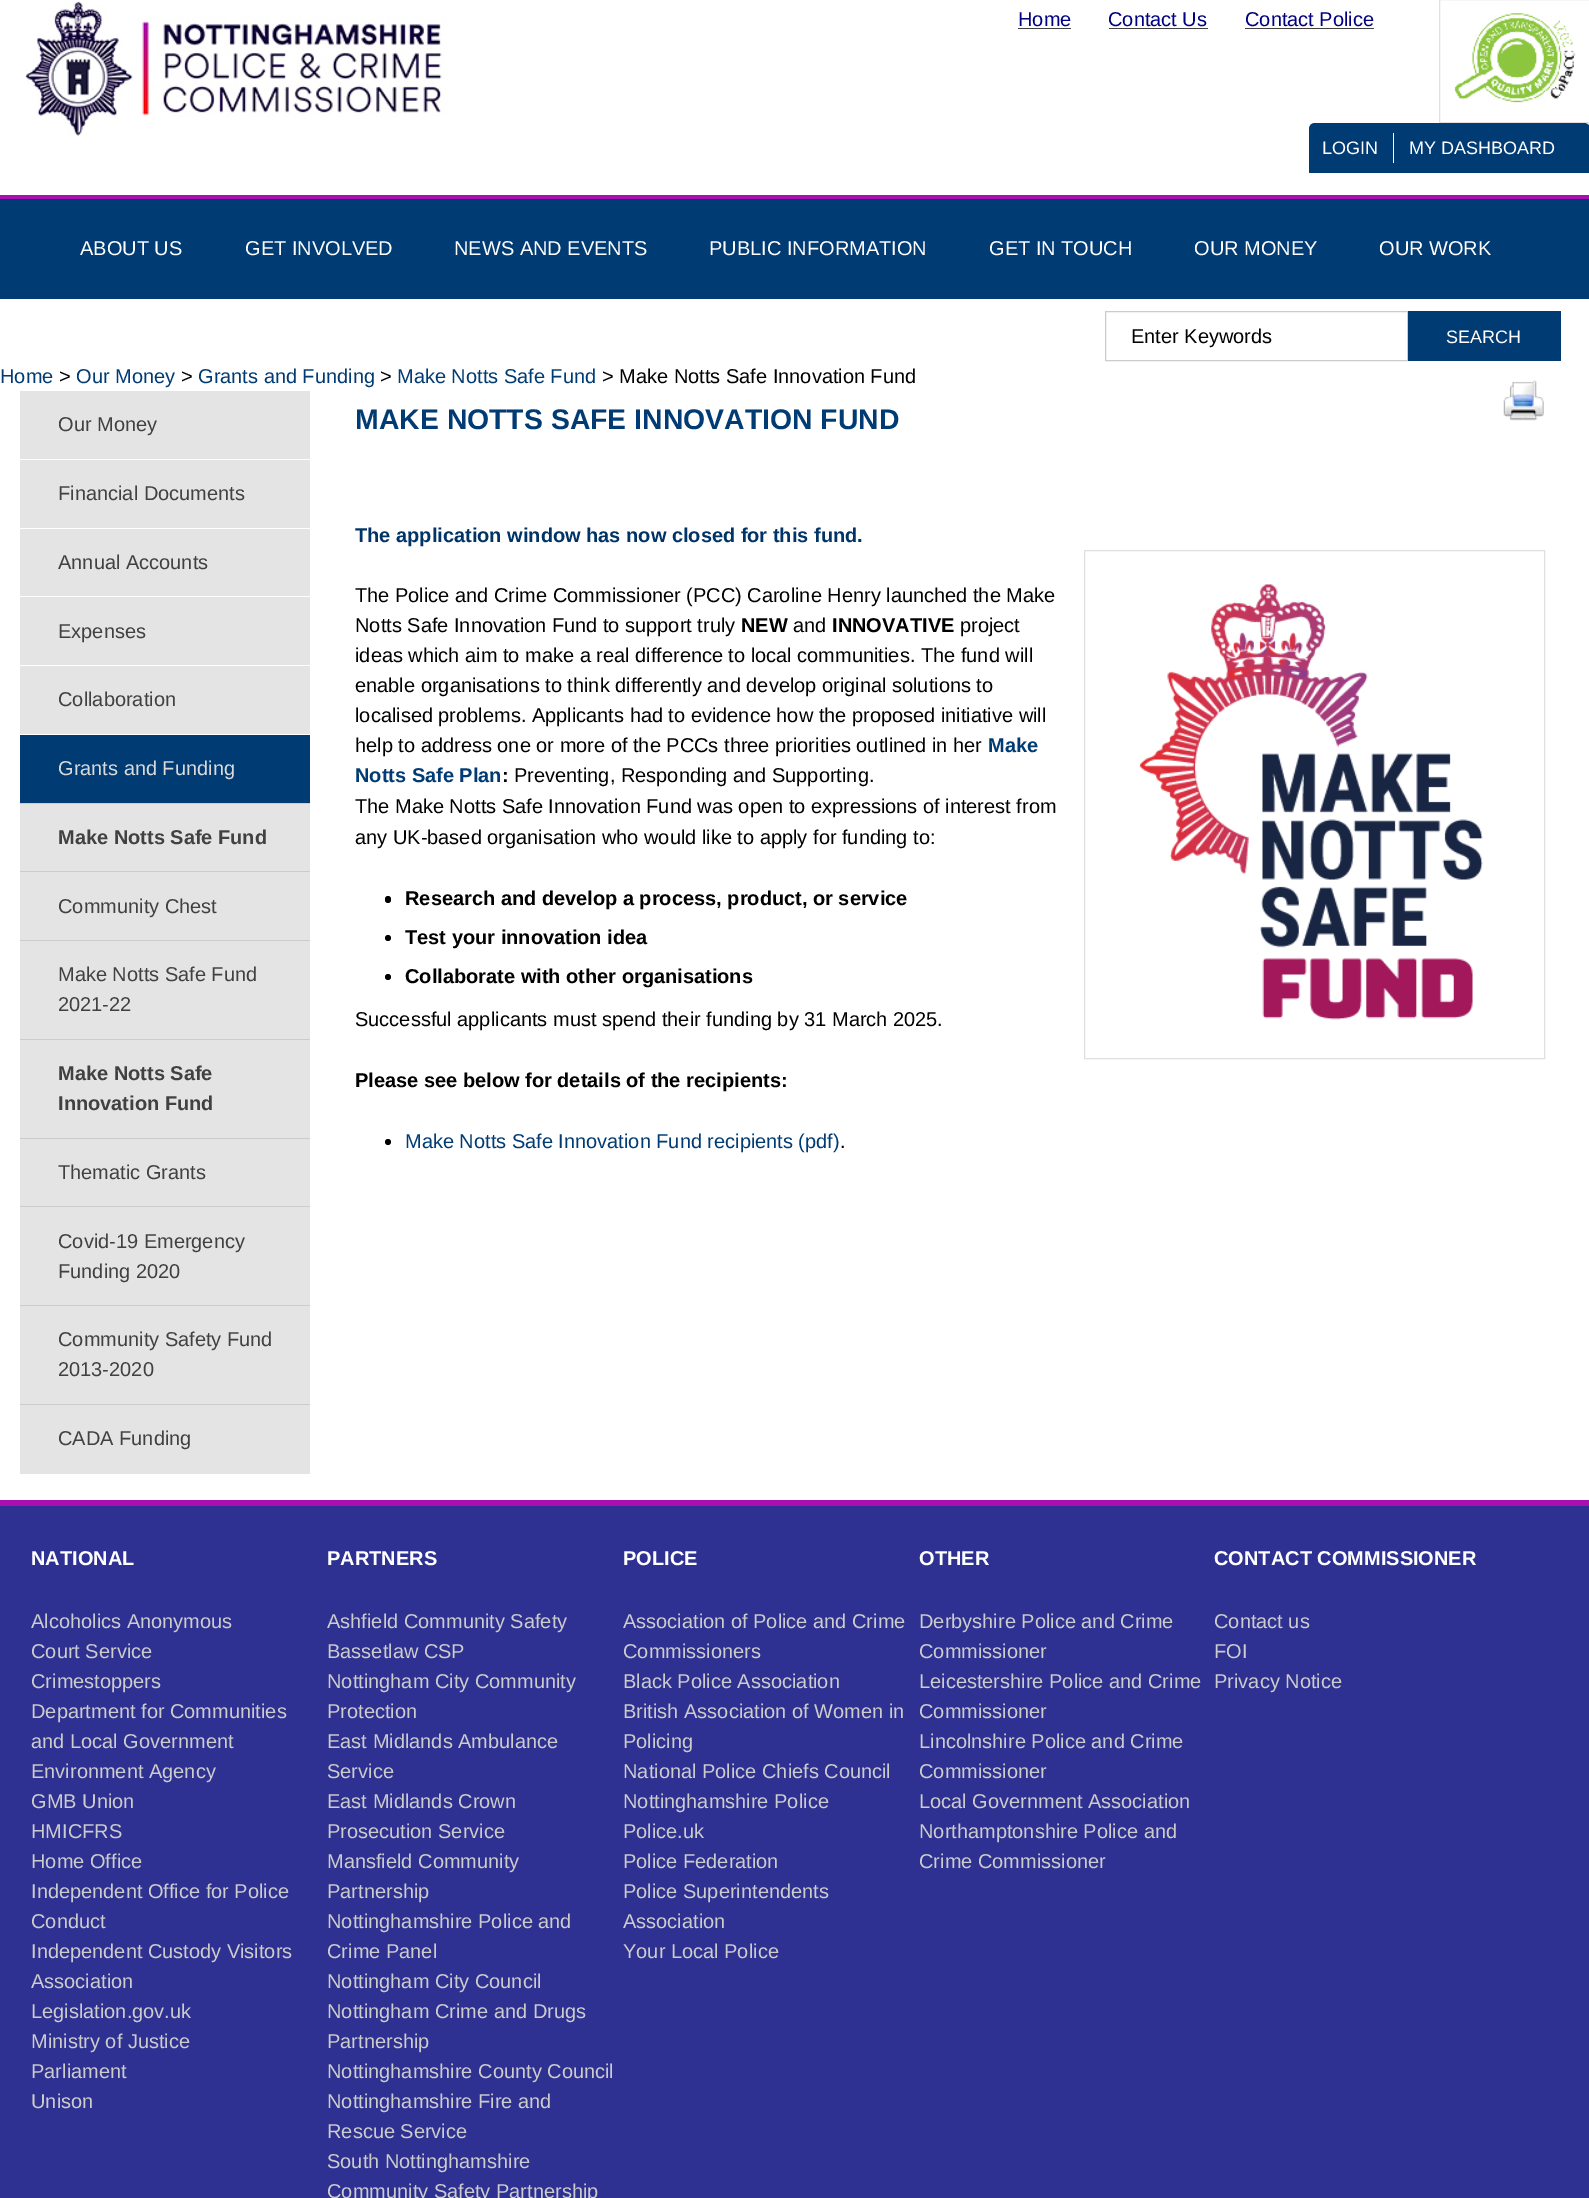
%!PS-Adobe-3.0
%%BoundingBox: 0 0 1589 2198
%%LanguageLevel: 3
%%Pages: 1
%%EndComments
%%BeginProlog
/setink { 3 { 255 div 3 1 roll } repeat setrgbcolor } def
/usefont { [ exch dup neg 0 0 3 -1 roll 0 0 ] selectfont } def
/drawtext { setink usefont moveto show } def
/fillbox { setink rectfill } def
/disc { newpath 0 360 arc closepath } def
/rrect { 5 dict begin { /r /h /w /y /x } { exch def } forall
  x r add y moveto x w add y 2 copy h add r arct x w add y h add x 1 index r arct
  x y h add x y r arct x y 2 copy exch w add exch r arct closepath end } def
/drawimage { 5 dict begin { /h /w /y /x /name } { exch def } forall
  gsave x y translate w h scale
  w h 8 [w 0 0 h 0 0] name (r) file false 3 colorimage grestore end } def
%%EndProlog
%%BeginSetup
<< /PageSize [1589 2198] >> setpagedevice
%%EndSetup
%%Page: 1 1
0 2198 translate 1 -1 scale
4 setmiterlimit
0 0 1589 2198 255 255 255 fillbox
(assets/img1.rgb) 25 1 420 135 drawimage
(Home) 1018 26 /LiberationSans-Regular 20 0 0 128 drawtext
1018 28 53 1 65 65 65 fillbox
(Contact Us) 1108 26 /LiberationSans-Regular 20 0 0 128 drawtext
1109 28 99 1 65 65 65 fillbox
(Contact Police) 1245 26 /LiberationSans-Regular 20 0 0 128 drawtext
1245 28 129 1 65 65 65 fillbox
224 224 224 setink
1439.5 -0.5 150 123 rectstroke
(assets/img2.rgb) 1454 13 122 90 drawimage
0 59 115 setink
1315 123 moveto 1584 123 lineto 1587.5 123 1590 125.5 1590 129 curveto 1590 173 lineto 1309 173 lineto 1309 129 lineto 1309 125.5 1311.5 123 1315 123 curveto closepath fill
1393 133 1 30 255 255 255 fillbox
(LOGIN) 1322 154 /LiberationSans-Regular 18 255 255 255 drawtext
(MY DASHBOARD) 1409 154 /LiberationSans-Regular 18 255 255 255 drawtext
0 199 1589 100 0 59 115 fillbox
0 195 1589 4 169 16 177 fillbox
(ABOUT US) 80 255 /LiberationSans-Regular 20 255 255 255 drawtext
(GET INVOLVED) 245 255 /LiberationSans-Regular 20 255 255 255 drawtext
(NEWS AND EVENTS) 454 255 /LiberationSans-Regular 20 255 255 255 drawtext
(PUBLIC INFORMATION) 709 255 /LiberationSans-Regular 20 255 255 255 drawtext
(GET IN TOUCH) 989 255 /LiberationSans-Regular 20 255 255 255 drawtext
(OUR MONEY) 1194 255 /LiberationSans-Regular 20 255 255 255 drawtext
(OUR WORK) 1379 255 /LiberationSans-Regular 20 255 255 255 drawtext
204 204 204 setink
1105.5 311.5 302 49 rectstroke
(Enter Keywords) 1131 343 /LiberationSans-Regular 20 0 0 0 drawtext
1408 311 153 50 0 59 115 fillbox
(SEARCH) 1446 343 /LiberationSans-Regular 18 255 255 255 drawtext
(Home) 0 383 /LiberationSans-Regular 20 0 59 115 drawtext
(>) 59 383 /LiberationSans-Regular 20 0 0 0 drawtext
(Our Money) 76 383 /LiberationSans-Regular 20 0 59 115 drawtext
(>) 181 383 /LiberationSans-Regular 20 0 0 0 drawtext
(Grants and Funding) 198 383 /LiberationSans-Regular 20 0 59 115 drawtext
(>) 380 383 /LiberationSans-Regular 20 0 0 0 drawtext
(Make Notts Safe Fund) 397 383 /LiberationSans-Regular 20 0 59 115 drawtext
(> Make Notts Safe Innovation Fund) 602 383 /LiberationSans-Regular 20 0 0 0 drawtext
20 391 290 1083 229 228 228 fillbox
(Our Money) 58 431 /LiberationSans-Regular 20 65 65 65 drawtext
20 459 290 1 255 255 255 fillbox
(Financial Documents) 58 500 /LiberationSans-Regular 20 65 65 65 drawtext
20 528 290 1 255 255 255 fillbox
(Annual Accounts) 58 569 /LiberationSans-Regular 20 65 65 65 drawtext
20 596 290 1 255 255 255 fillbox
(Expenses) 58 638 /LiberationSans-Regular 20 65 65 65 drawtext
20 665 290 1 255 255 255 fillbox
(Collaboration) 58 706 /LiberationSans-Regular 20 65 65 65 drawtext
20 734 290 1 255 255 255 fillbox
20 735 290 68 0 59 115 fillbox
(Grants and Funding) 58 775 /LiberationSans-Regular 20 218 218 218 drawtext
20 803 290 1 204 204 204 fillbox
(Make Notts Safe Fund) 58 844 /LiberationSans-Bold 20 65 65 65 drawtext
20 871 290 1 204 204 204 fillbox
(Community Chest) 58 913 /LiberationSans-Regular 20 65 65 65 drawtext
20 940 290 1 204 204 204 fillbox
(Make Notts Safe Fund) 58 981 /LiberationSans-Regular 20 65 65 65 drawtext
(2021-22) 58 1011 /LiberationSans-Regular 20 65 65 65 drawtext
20 1039 290 1 204 204 204 fillbox
(Make Notts Safe) 58 1080 /LiberationSans-Bold 20 65 65 65 drawtext
(Innovation Fund) 58 1110 /LiberationSans-Bold 20 65 65 65 drawtext
20 1138 290 1 204 204 204 fillbox
(Thematic Grants) 58 1179 /LiberationSans-Regular 20 65 65 65 drawtext
20 1206 290 1 204 204 204 fillbox
(Covid-19 Emergency) 58 1248 /LiberationSans-Regular 20 65 65 65 drawtext
(Funding 2020) 58 1278 /LiberationSans-Regular 20 65 65 65 drawtext
20 1305 290 1 204 204 204 fillbox
(Community Safety Fund) 58 1346 /LiberationSans-Regular 20 65 65 65 drawtext
(2013-2020) 58 1376 /LiberationSans-Regular 20 65 65 65 drawtext
20 1404 290 1 204 204 204 fillbox
(CADA Funding) 58 1445 /LiberationSans-Regular 20 65 65 65 drawtext
(MAKE NOTTS SAFE INNOVATION FUND) 355 429 /LiberationSans-Bold 28.4 0 59 115 drawtext
(assets/img3.rgb) 1503 380 41 41 drawimage
(The application window has now closed for this fund.) 355 542 /LiberationSans-Bold 20 0 51 102 drawtext
(The Police and Crime Commissioner \(PCC\) Caroline Henry launched the Make) 355 602 /LiberationSans-Regular 20 0 0 0 drawtext
224 224 224 setink
1084.5 550.5 460 508 rectstroke
(assets/img4.rgb) 1139 584 344 436 drawimage
(Notts Safe Innovation Fund to support truly) 355 632 /LiberationSans-Regular 20 0 0 0 drawtext
(NEW) 741 632 /LiberationSans-Bold 20 0 0 0 drawtext
(and) 793 632 /LiberationSans-Regular 20 0 0 0 drawtext
(INNOVATIVE) 832 632 /LiberationSans-Bold 20 0 0 0 drawtext
(project) 960 632 /LiberationSans-Regular 20 0 0 0 drawtext
(ideas which aim to make a real difference to local communities. The fund will) 355 662 /LiberationSans-Regular 20 0 0 0 drawtext
(enable organisations to think differently and develop original solutions to) 355 692 /LiberationSans-Regular 20 0 0 0 drawtext
(localised problems. Applicants had to evidence how the proposed initiative will) 355 722 /LiberationSans-Regular 20 0 0 0 drawtext
(help to address one or more of the PCCs three priorities outlined in her) 355 752 /LiberationSans-Regular 20 0 0 0 drawtext
(Make) 988 752 /LiberationSans-Bold 20 0 59 115 drawtext
(Notts Safe Plan) 355 782 /LiberationSans-Bold 20 0 59 115 drawtext
(:) 502 782 /LiberationSans-Bold 20 0 0 0 drawtext
(Preventing, Responding and Supporting.) 514 782 /LiberationSans-Regular 20 0 0 0 drawtext
(The Make Notts Safe Innovation Fund was open to expressions of interest from) 355 813 /LiberationSans-Regular 20 0 0 0 drawtext
(any UK-based organisation who would like to apply for funding to:) 355 844 /LiberationSans-Regular 20 0 0 0 drawtext
385 896 6 7 3 rrect fill
(Research and develop a process, product, or service) 405 905 /LiberationSans-Bold 20 0 0 0 drawtext
388 938 3 disc fill
(Test your innovation idea) 405 944 /LiberationSans-Bold 20 0 0 0 drawtext
388 977 3 disc fill
(Collaborate with other organisations) 405 983 /LiberationSans-Bold 20 0 0 0 drawtext
(Successful applicants must spend their funding by 31 March 2025.) 355 1026 /LiberationSans-Regular 20 0 0 0 drawtext
(Please see below for details of the recipients:) 355 1087 /LiberationSans-Bold 20 0 0 0 drawtext
388 1142 3 disc fill
(Make Notts Safe Innovation Fund recipients \(pdf\)) 405 1148 /LiberationSans-Regular 20 0 59 115 drawtext
(.) 840 1148 /LiberationSans-Regular 20 0 0 0 drawtext
0 1506 1589 692 46 49 146 fillbox
0 1500 1589 6 169 16 177 fillbox
(NATIONAL) 31 1565 /LiberationSans-Bold 20 255 255 255 drawtext
(Alcoholics Anonymous) 31 1628 /LiberationSans-Regular 20 204 204 204 drawtext
(Court Service) 31 1658 /LiberationSans-Regular 20 204 204 204 drawtext
(Crimestoppers) 31 1688 /LiberationSans-Regular 20 204 204 204 drawtext
(Department for Communities) 31 1718 /LiberationSans-Regular 20 204 204 204 drawtext
(and Local Government) 31 1748 /LiberationSans-Regular 20 204 204 204 drawtext
(Environment Agency) 31 1778 /LiberationSans-Regular 20 204 204 204 drawtext
(GMB Union) 31 1808 /LiberationSans-Regular 20 204 204 204 drawtext
(HMICFRS) 31 1838 /LiberationSans-Regular 20 204 204 204 drawtext
(Home Office) 31 1868 /LiberationSans-Regular 20 204 204 204 drawtext
(Independent Office for Police) 31 1898 /LiberationSans-Regular 20 204 204 204 drawtext
(Conduct) 31 1928 /LiberationSans-Regular 20 204 204 204 drawtext
(Independent Custody Visitors) 31 1958 /LiberationSans-Regular 20 204 204 204 drawtext
(Association) 31 1988 /LiberationSans-Regular 20 204 204 204 drawtext
(Legislation.gov.uk) 31 2018 /LiberationSans-Regular 20 204 204 204 drawtext
(Ministry of Justice) 31 2048 /LiberationSans-Regular 20 204 204 204 drawtext
(Parliament) 31 2078 /LiberationSans-Regular 20 204 204 204 drawtext
(Unison) 31 2108 /LiberationSans-Regular 20 204 204 204 drawtext
(PARTNERS) 327 1565 /LiberationSans-Bold 20 255 255 255 drawtext
(Ashfield Community Safety) 327 1628 /LiberationSans-Regular 20 204 204 204 drawtext
(Bassetlaw CSP) 327 1658 /LiberationSans-Regular 20 204 204 204 drawtext
(Nottingham City Community) 327 1688 /LiberationSans-Regular 20 204 204 204 drawtext
(Protection) 327 1718 /LiberationSans-Regular 20 204 204 204 drawtext
(East Midlands Ambulance) 327 1748 /LiberationSans-Regular 20 204 204 204 drawtext
(Service) 327 1778 /LiberationSans-Regular 20 204 204 204 drawtext
(East Midlands Crown) 327 1808 /LiberationSans-Regular 20 204 204 204 drawtext
(Prosecution Service) 327 1838 /LiberationSans-Regular 20 204 204 204 drawtext
(Mansfield Community) 327 1868 /LiberationSans-Regular 20 204 204 204 drawtext
(Partnership) 327 1898 /LiberationSans-Regular 20 204 204 204 drawtext
(Nottinghamshire Police and) 327 1928 /LiberationSans-Regular 20 204 204 204 drawtext
(Crime Panel) 327 1958 /LiberationSans-Regular 20 204 204 204 drawtext
(Nottingham City Council) 327 1988 /LiberationSans-Regular 20 204 204 204 drawtext
(Nottingham Crime and Drugs) 327 2018 /LiberationSans-Regular 20 204 204 204 drawtext
(Partnership) 327 2048 /LiberationSans-Regular 20 204 204 204 drawtext
(Nottinghamshire County Council) 327 2078 /LiberationSans-Regular 20 204 204 204 drawtext
(Nottinghamshire Fire and) 327 2108 /LiberationSans-Regular 20 204 204 204 drawtext
(Rescue Service) 327 2138 /LiberationSans-Regular 20 204 204 204 drawtext
(South Nottinghamshire) 327 2168 /LiberationSans-Regular 20 204 204 204 drawtext
(Community Safety Partnership) 327 2198 /LiberationSans-Regular 20 204 204 204 drawtext
(POLICE) 623 1565 /LiberationSans-Bold 20 255 255 255 drawtext
(Association of Police and Crime) 623 1628 /LiberationSans-Regular 20 204 204 204 drawtext
(Commissioners) 623 1658 /LiberationSans-Regular 20 204 204 204 drawtext
(Black Police Association) 623 1688 /LiberationSans-Regular 20 204 204 204 drawtext
(British Association of Women in) 623 1718 /LiberationSans-Regular 20 204 204 204 drawtext
(Policing) 623 1748 /LiberationSans-Regular 20 204 204 204 drawtext
(National Police Chiefs Council) 623 1778 /LiberationSans-Regular 20 204 204 204 drawtext
(Nottinghamshire Police) 623 1808 /LiberationSans-Regular 20 204 204 204 drawtext
(Police.uk) 623 1838 /LiberationSans-Regular 20 204 204 204 drawtext
(Police Federation) 623 1868 /LiberationSans-Regular 20 204 204 204 drawtext
(Police Superintendents) 623 1898 /LiberationSans-Regular 20 204 204 204 drawtext
(Association) 623 1928 /LiberationSans-Regular 20 204 204 204 drawtext
(Your Local Police) 623 1958 /LiberationSans-Regular 20 204 204 204 drawtext
(OTHER) 919 1565 /LiberationSans-Bold 20 255 255 255 drawtext
(Derbyshire Police and Crime) 919 1628 /LiberationSans-Regular 20 204 204 204 drawtext
(Commissioner) 919 1658 /LiberationSans-Regular 20 204 204 204 drawtext
(Leicestershire Police and Crime) 919 1688 /LiberationSans-Regular 20 204 204 204 drawtext
(Commissioner) 919 1718 /LiberationSans-Regular 20 204 204 204 drawtext
(Lincolnshire Police and Crime) 919 1748 /LiberationSans-Regular 20 204 204 204 drawtext
(Commissioner) 919 1778 /LiberationSans-Regular 20 204 204 204 drawtext
(Local Government Association) 919 1808 /LiberationSans-Regular 20 204 204 204 drawtext
(Northamptonshire Police and) 919 1838 /LiberationSans-Regular 20 204 204 204 drawtext
(Crime Commissioner) 919 1868 /LiberationSans-Regular 20 204 204 204 drawtext
(CONTACT COMMISSIONER) 1214 1565 /LiberationSans-Bold 20 255 255 255 drawtext
(Contact us) 1214 1628 /LiberationSans-Regular 20 204 204 204 drawtext
(FOI) 1214 1658 /LiberationSans-Regular 20 204 204 204 drawtext
(Privacy Notice) 1214 1688 /LiberationSans-Regular 20 204 204 204 drawtext
showpage
%%EOF
